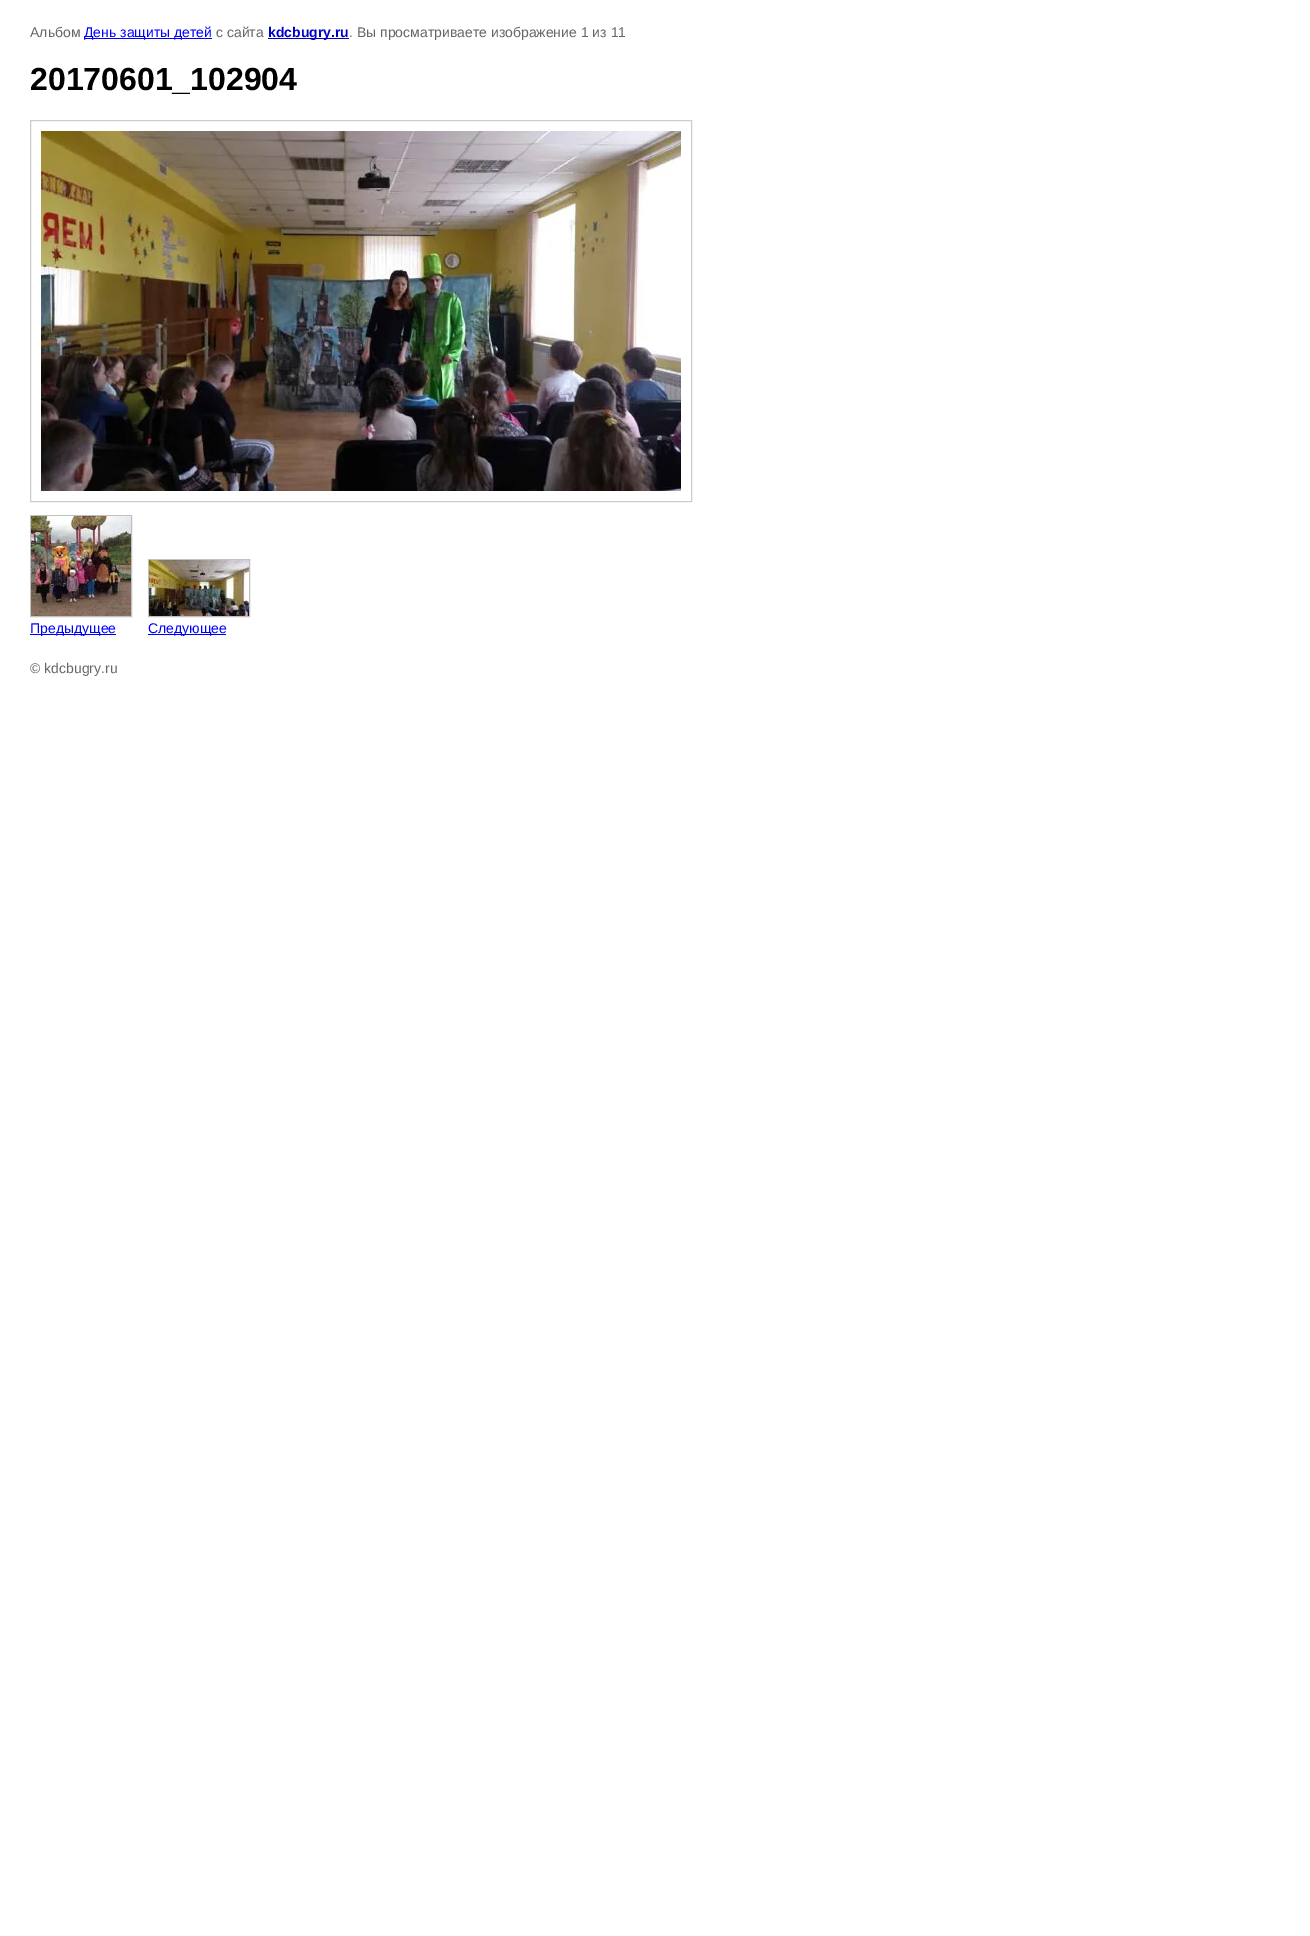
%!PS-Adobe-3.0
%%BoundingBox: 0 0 1310 1936
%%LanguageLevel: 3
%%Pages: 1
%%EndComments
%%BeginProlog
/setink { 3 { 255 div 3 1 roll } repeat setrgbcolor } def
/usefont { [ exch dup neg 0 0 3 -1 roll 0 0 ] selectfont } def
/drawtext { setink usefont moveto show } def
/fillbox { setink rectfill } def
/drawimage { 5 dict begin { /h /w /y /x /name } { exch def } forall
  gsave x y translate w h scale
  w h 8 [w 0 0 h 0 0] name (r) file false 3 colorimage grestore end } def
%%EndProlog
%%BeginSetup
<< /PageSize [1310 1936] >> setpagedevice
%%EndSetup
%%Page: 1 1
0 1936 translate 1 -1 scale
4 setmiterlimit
0 0 1310 1936 255 255 255 fillbox
(Альбом) 30 37 /LiberationSans-Regular 14 102 102 102 drawtext
84 38 128 1 0 0 255 fillbox
(День защиты детей) 84 37 /LiberationSans-Regular 14 0 0 255 drawtext
(с сайта) 216 37 /LiberationSans-Regular 14 102 102 102 drawtext
268 38 81 1 0 0 204 fillbox
(kdcbugry.ru) 268 37 /LiberationSans-Bold 14 0 0 204 drawtext
(. Вы просматриваете изображение 1 из 11) 349 37 /LiberationSans-Regular 14 102 102 102 drawtext
(20170601_102904) 30 90 /LiberationSans-Bold 32 0 0 0 drawtext
204 204 204 setink
30.5 120.5 661 381 rectstroke
(assets/img1.rgb) 41 131 640 360 drawimage
192 192 192 setink
30.5 515.5 101 101 rectstroke
(assets/img2.rgb) 31 516 100 100 drawimage
30 634 86 1 0 0 255 fillbox
(Предыдущее) 30 633 /LiberationSans-Regular 14 0 0 255 drawtext
192 192 192 setink
148.5 559.5 101 57 rectstroke
(assets/img3.rgb) 149 560 100 56 drawimage
148 634 78 1 0 0 255 fillbox
(Следующее) 148 633 /LiberationSans-Regular 14 0 0 255 drawtext
(© kdcbugry.ru) 30 673 /LiberationSans-Regular 14 102 102 102 drawtext
showpage
%%EOF
